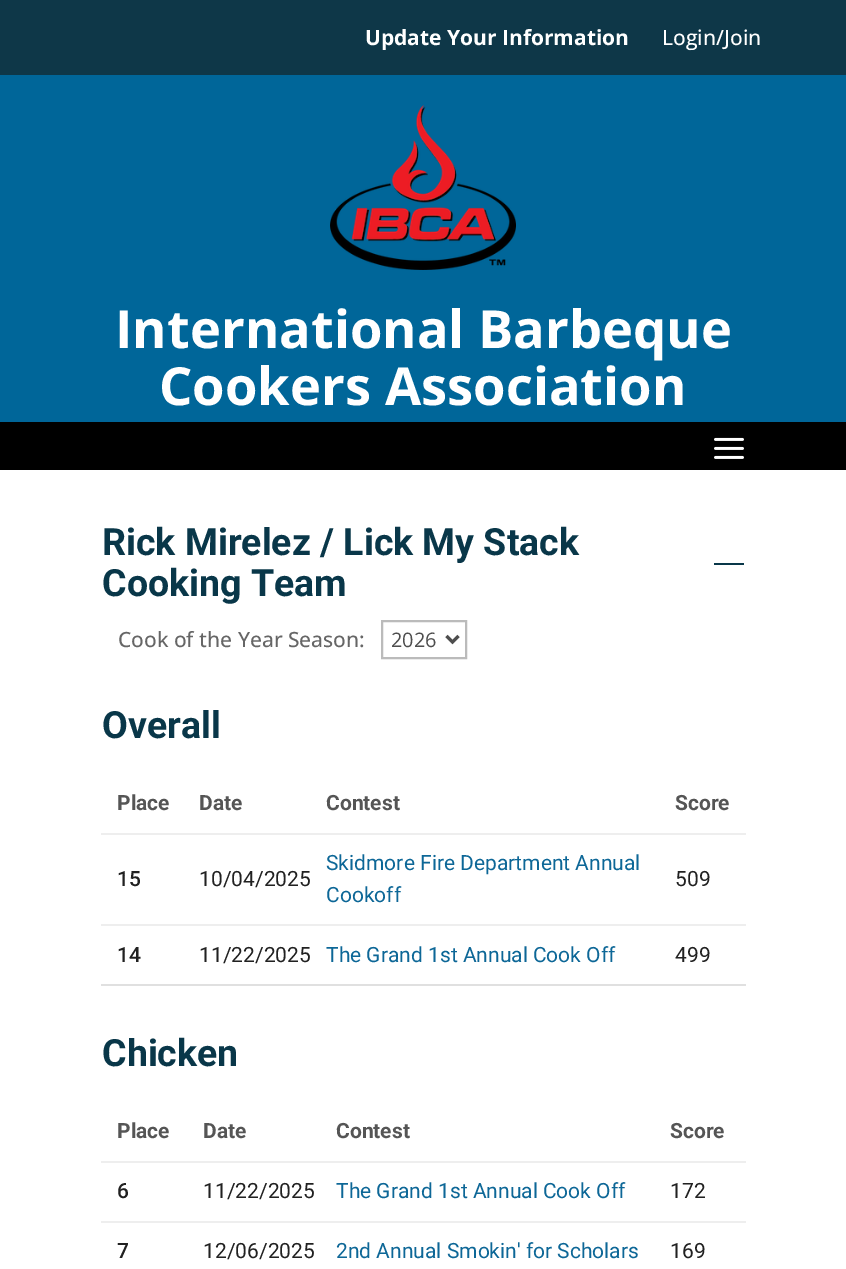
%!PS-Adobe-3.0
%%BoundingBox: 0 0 846 1269
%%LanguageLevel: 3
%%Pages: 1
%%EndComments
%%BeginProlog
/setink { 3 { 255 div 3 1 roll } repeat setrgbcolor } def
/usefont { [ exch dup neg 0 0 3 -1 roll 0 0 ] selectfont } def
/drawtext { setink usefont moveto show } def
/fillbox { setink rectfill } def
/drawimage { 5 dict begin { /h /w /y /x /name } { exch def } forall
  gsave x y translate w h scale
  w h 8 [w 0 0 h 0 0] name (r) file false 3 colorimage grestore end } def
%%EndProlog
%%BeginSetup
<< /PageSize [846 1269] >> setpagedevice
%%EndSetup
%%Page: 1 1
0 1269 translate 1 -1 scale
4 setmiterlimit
0 0 846 1269 255 255 255 fillbox
0 0 846 75 14 55 72 fillbox
(Update Your Information) 365 45 /OpenSans-Bold 21 255 255 255 drawtext
(Login/Join) 662 45 /OpenSans-Medium 21 255 255 255 drawtext
0 75 846 347 0 102 153 fillbox
(assets/img1.rgb) 330 105 186 165 drawimage
(International Barbeque) 115 348 /OpenSans-Bold 52.5 255 255 255 drawtext
(Cookers Association) 159 405 /OpenSans-Bold 52.5 255 255 255 drawtext
0 422 846 48 0 0 0 fillbox
(assets/img2.rgb) 714 437 30 22 drawimage
(Rick Mirelez / Lick My Stack) 102 555 /Roboto-Bold 37.5 9 55 73 drawtext
714 563 30 2 9 55 73 fillbox
(Cooking Team) 102 596 /Roboto-Bold 37.5 9 55 73 drawtext
(Cook of the Year Season:) 118 647 /OpenSans-Medium 21 102 102 102 drawtext
187 187 187 setink
2 setlinewidth
382 621 84 37 rectstroke
78 78 78 setink
3 setlinewidth
446.5 636 moveto 452.5 642 lineto 458.5 636 lineto stroke
(2026) 391 647 /OpenSans-Regular 20 78 78 78 drawtext
(Overall) 102 738 /Roboto-Bold 37.5 9 55 73 drawtext
(Place) 117 810 /Roboto-Bold 21 85 85 85 drawtext
(Date) 199 810 /Roboto-Bold 21 85 85 85 drawtext
(Contest) 326 810 /Roboto-Bold 21 85 85 85 drawtext
(Score) 675 810 /Roboto-Bold 21 85 85 85 drawtext
(15) 117 886 /Roboto-Medium 21 33 33 33 drawtext
(10/04/2025) 199 886 /Roboto-Regular 21 33 33 33 drawtext
(Skidmore Fire Department Annual) 326 870 /Roboto-Regular 21 13 103 151 drawtext
(Cookoff) 326 902 /Roboto-Regular 21 13 103 151 drawtext
101 833 645 2 238 238 238 fillbox
(509) 675 886 /Roboto-Regular 21 33 33 33 drawtext
101 984 645 2 224 224 224 fillbox
(14) 117 962 /Roboto-Medium 21 33 33 33 drawtext
(11/22/2025) 199 962 /Roboto-Regular 21 33 33 33 drawtext
(The Grand 1st Annual Cook Off) 326 962 /Roboto-Regular 21 13 103 151 drawtext
101 924 645 2 238 238 238 fillbox
(499) 675 962 /Roboto-Regular 21 33 33 33 drawtext
(Chicken) 102 1066 /Roboto-Bold 37.5 9 55 73 drawtext
(Place) 117 1138 /Roboto-Bold 21 85 85 85 drawtext
(Date) 203 1138 /Roboto-Bold 21 85 85 85 drawtext
(Contest) 336 1138 /Roboto-Bold 21 85 85 85 drawtext
(Score) 670 1138 /Roboto-Bold 21 85 85 85 drawtext
(6) 117 1198 /Roboto-Medium 21 33 33 33 drawtext
(11/22/2025) 203 1198 /Roboto-Regular 21 33 33 33 drawtext
(The Grand 1st Annual Cook Off) 336 1198 /Roboto-Regular 21 13 103 151 drawtext
101 1161 645 2 238 238 238 fillbox
(172) 670 1198 /Roboto-Regular 21 33 33 33 drawtext
(7) 117 1258 /Roboto-Medium 21 33 33 33 drawtext
(12/06/2025) 203 1258 /Roboto-Regular 21 33 33 33 drawtext
(2nd Annual Smokin' for Scholars) 336 1258 /Roboto-Regular 21 13 103 151 drawtext
101 1221 645 2 238 238 238 fillbox
(169) 670 1258 /Roboto-Regular 21 33 33 33 drawtext
showpage
%%EOF
